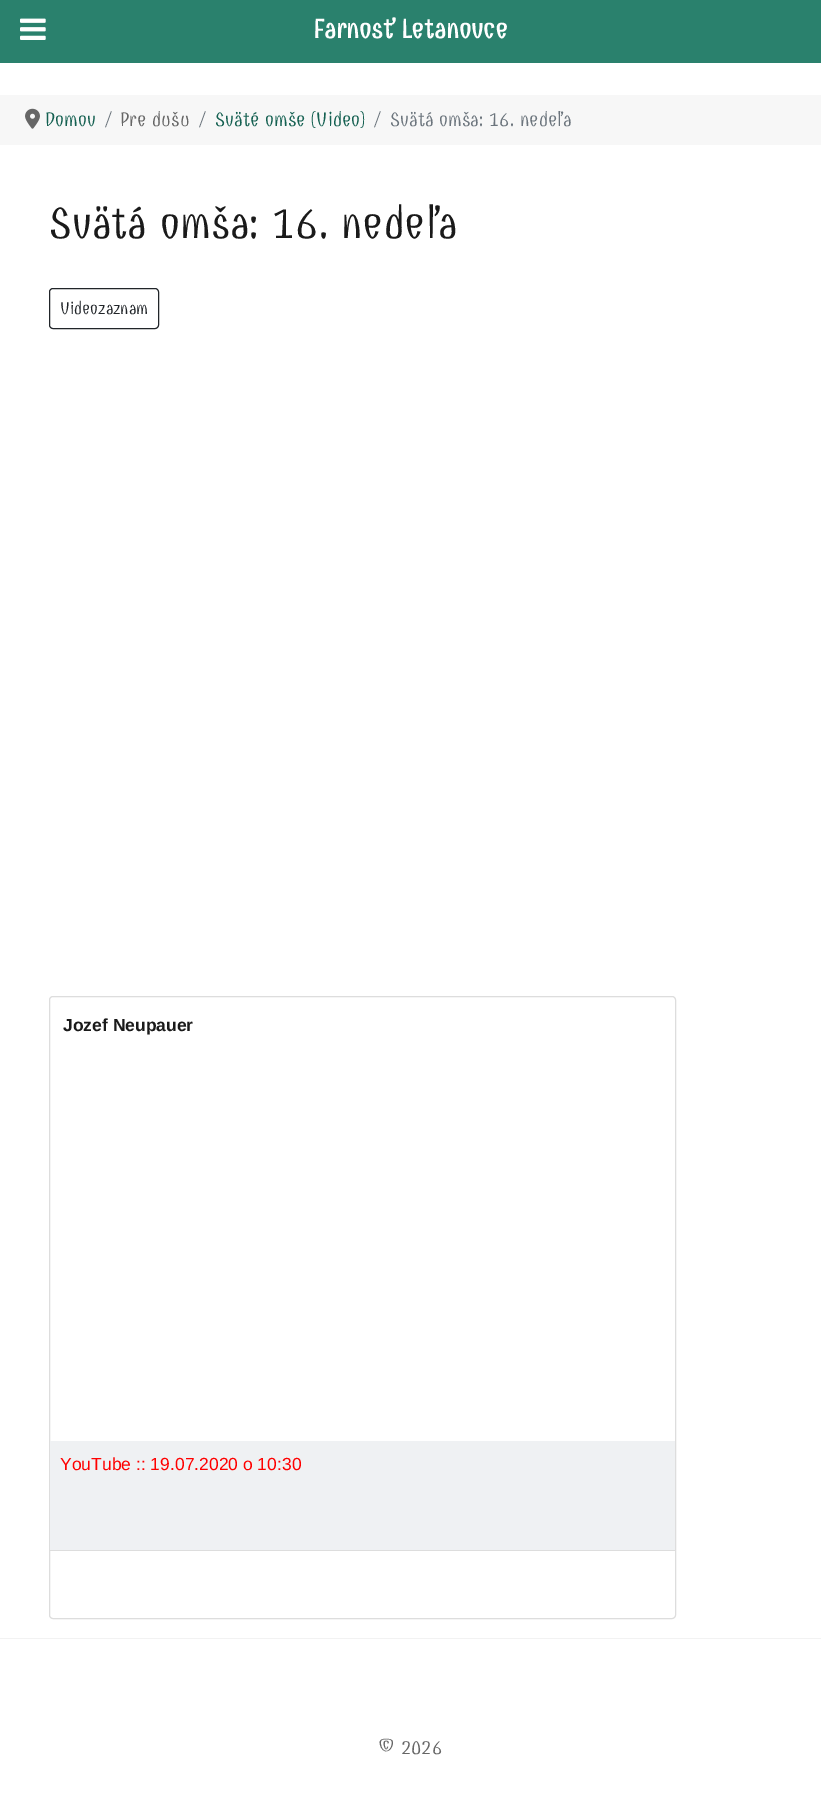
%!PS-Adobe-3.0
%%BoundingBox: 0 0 821 1801
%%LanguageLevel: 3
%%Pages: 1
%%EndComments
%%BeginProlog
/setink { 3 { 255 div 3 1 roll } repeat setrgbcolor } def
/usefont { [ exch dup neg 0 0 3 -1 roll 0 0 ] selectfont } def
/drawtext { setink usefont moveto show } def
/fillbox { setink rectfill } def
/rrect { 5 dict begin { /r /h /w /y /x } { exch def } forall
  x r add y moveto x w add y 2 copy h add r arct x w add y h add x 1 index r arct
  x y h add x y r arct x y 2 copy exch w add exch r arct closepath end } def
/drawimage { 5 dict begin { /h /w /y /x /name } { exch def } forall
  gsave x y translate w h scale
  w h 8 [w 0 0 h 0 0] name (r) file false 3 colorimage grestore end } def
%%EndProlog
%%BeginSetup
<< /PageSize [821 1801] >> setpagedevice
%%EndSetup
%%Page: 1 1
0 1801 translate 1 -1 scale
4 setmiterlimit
0 0 821 1801 255 255 255 fillbox
0 0 821 63 42 129 109 fillbox
(assets/img1.rgb) 20 18 26 22 drawimage
(Farnosť Letanovce) 313 38 /Combo-Bold 27.5 255 255 255 drawtext
0 95 821 50 247 247 247 fillbox
(assets/img2.rgb) 25 108 15 21 drawimage
(Domov) 45 126 /Combo-Regular 20 21 97 82 drawtext
(/) 106 126 /Combo-Regular 20 108 117 125 drawtext
(Pre dušu) 120 126 /Combo-Regular 20 102 102 102 drawtext
(/) 200 126 /Combo-Regular 20 108 117 125 drawtext
(Sväté omše \(Video\)) 215 126 /Combo-Regular 20 21 97 82 drawtext
(/) 375 126 /Combo-Regular 20 108 117 125 drawtext
(Svätá omša: 16. nedeľa) 390 126 /Combo-Regular 20 108 117 125 drawtext
(Svätá omša: 16. nedeľa) 49 238 /Combo-Regular 45 26 26 26 drawtext
33 37 41 setink
49.5 288.5 109 40 3.5 rrect stroke
(Videozaznam) 60 314 /Combo-Regular 17.5 33 37 41 drawtext
221 221 221 setink
49.5 996.5 626 622 3.5 rrect stroke
(Jozef Neupauer) 63 1031 /LiberationSans-Bold 17.5 26 26 26 drawtext
50 1441 625 109 239 241 243 fillbox
50 1550 625 1 221 221 221 fillbox
(YouTube :: 19.07.2020 o 10:30) 60 1470 /LiberationSans-Regular 17.5 255 0 0 drawtext
0 1638 821 1 242 242 242 fillbox
(© 2026) 378 1754 /Combo-Regular 20 102 102 102 drawtext
showpage
%%EOF
